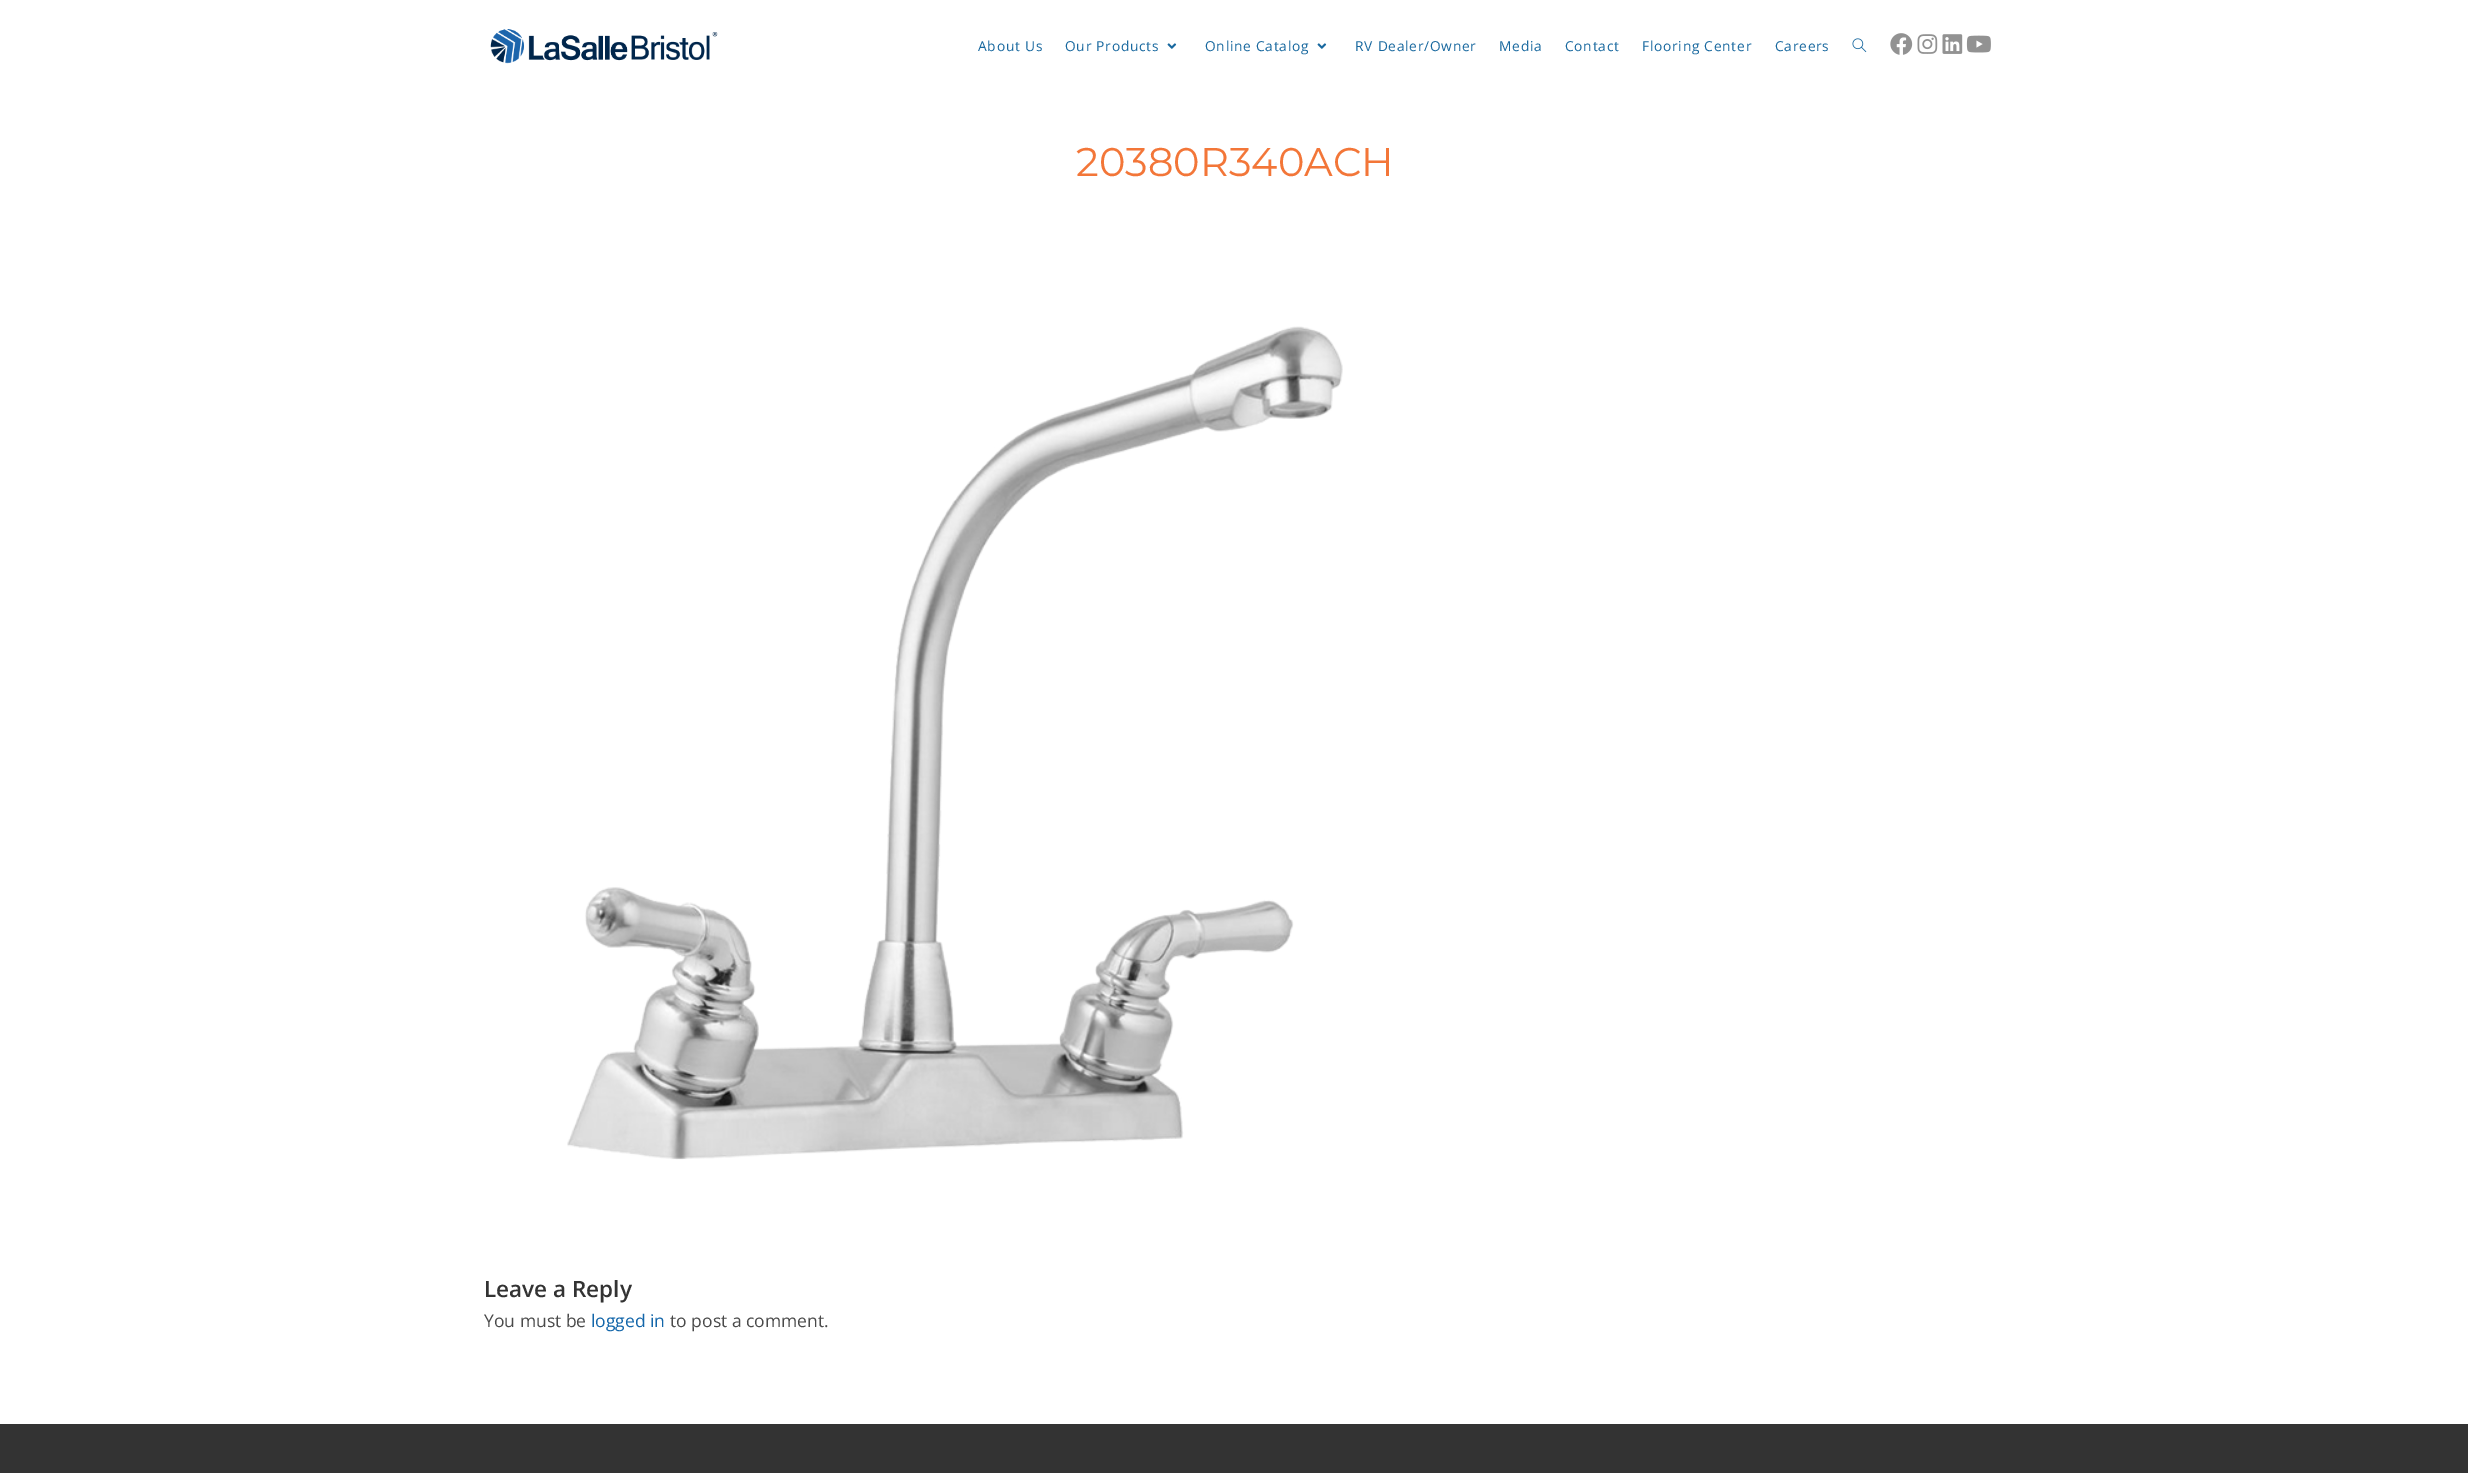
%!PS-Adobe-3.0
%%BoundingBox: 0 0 2468 1473
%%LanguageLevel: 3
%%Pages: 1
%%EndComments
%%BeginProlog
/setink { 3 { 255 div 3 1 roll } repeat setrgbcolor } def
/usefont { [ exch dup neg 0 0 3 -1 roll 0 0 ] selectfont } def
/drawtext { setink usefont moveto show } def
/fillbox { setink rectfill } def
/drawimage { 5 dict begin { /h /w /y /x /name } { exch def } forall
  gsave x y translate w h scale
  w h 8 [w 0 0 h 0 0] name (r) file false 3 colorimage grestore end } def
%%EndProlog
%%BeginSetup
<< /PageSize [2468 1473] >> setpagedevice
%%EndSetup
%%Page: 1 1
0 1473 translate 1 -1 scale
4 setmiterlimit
0 0 2468 1473 255 255 255 fillbox
(assets/img1.rgb) 490 29 228 35 drawimage
/OpenSans-Regular 13.75 usefont
24 104 159 setink
978 51 moveto 0.75 0 (About Us) ashow
1065 51 moveto 0.75 0 (Our Products) ashow
(assets/img2.rgb) 1167 43 10 6 drawimage
1205 51 moveto 0.75 0 (Online Catalog) ashow
(assets/img2.rgb) 1317 43 10 6 drawimage
1355 51 moveto 0.75 0 (RV Dealer/Owner) ashow
1499 51 moveto 0.75 0 (Media) ashow
1565 51 moveto 0.75 0 (Contact) ashow
1642 51 moveto 0.75 0 (Flooring Center) ashow
1775 51 moveto 0.75 0 (Careers) ashow
(assets/img3.rgb) 1852 38 15 15 drawimage
(assets/img4.rgb) 1890 33 23 22 drawimage
(assets/img5.rgb) 1917 34 21 20 drawimage
(assets/img6.rgb) 1942 34 21 20 drawimage
(assets/img7.rgb) 1966 35 25 18 drawimage
(20380R340ACH) 1076 176 /Montserrat-Regular 40 243 118 56 drawtext
(assets/img8.rgb) 567 326 776 834 drawimage
(Leave a Reply) 484 1297 /OpenSans-SemiBold 22.5 51 51 51 drawtext
(You must be) 484 1327 /OpenSans-Regular 17.5 74 74 74 drawtext
(logged in) 591 1327 /OpenSans-Regular 17.5 19 102 170 drawtext
(to post a comment.) 670 1327 /OpenSans-Regular 17.5 74 74 74 drawtext
0 1424 2468 49 51 51 51 fillbox
showpage
%%EOF
